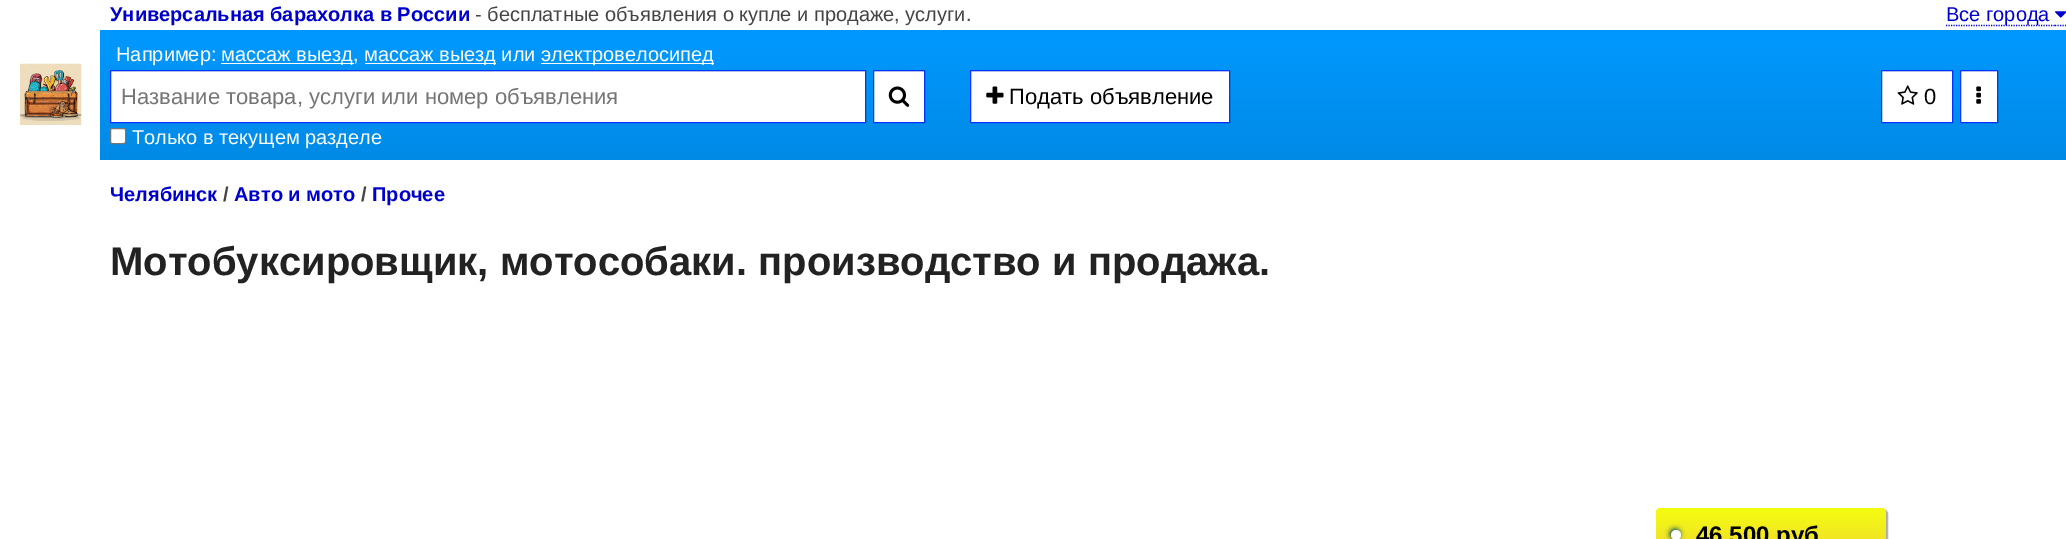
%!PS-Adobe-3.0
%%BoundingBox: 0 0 2066 539
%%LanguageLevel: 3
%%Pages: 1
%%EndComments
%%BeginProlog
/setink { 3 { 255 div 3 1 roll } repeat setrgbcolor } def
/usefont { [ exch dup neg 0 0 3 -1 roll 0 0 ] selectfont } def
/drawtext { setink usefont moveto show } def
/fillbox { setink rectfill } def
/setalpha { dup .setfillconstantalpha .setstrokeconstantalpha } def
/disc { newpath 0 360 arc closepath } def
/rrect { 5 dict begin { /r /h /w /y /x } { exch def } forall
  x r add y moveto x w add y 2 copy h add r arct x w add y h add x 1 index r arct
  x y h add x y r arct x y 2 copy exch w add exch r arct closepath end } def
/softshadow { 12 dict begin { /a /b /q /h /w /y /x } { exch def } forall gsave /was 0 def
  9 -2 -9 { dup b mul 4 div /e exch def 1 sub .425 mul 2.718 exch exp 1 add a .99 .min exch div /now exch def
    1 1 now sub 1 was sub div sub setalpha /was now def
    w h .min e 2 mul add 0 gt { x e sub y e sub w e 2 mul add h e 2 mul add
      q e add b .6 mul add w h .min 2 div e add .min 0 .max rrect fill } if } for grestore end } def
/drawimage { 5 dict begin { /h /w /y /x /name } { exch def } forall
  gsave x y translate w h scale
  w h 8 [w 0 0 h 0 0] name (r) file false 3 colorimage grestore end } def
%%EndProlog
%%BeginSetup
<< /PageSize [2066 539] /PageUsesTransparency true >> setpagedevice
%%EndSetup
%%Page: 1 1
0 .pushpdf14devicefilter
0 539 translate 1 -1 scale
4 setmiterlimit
0 0 2066 539 255 255 255 fillbox
(Универсальная барахолка в России) 110 21 /LiberationSans-Bold 20 0 0 204 drawtext
(- бесплатные объявления о купле и продаже, услуги.) 475 21 /LiberationSans-Regular 20 68 68 68 drawtext
0 0 204 setink
1.2 setlinewidth
[1.25 1.25] 0 setdash
1946 25.5 moveto 2055 25.5 lineto stroke
2055 25.5 moveto 2066 25.5 lineto stroke
(Все города) 1946 21 /LiberationSans-Regular 20 0 0 204 drawtext
(assets/img1.rgb) 2055 11 11 7 drawimage
gsave 100 30 moveto 2066 30 lineto 2066 160 lineto 100 160 lineto closepath clip newpath
<< /ShadingType 2 /ColorSpace /DeviceRGB /Coords [0 30 0 160] /Extend [true true] /Function << /FunctionType 2 /Domain [0 1] /C0 [0 0.6 1] /C1 [0 0.541 0.902] /N 1 >> >> shfill grestore
(assets/img2.rgb) 20 63 62 62 drawimage
(Например:) 116 61 /LiberationSans-Regular 20 255 255 255 drawtext
221 63 133 1 255 255 255 fillbox
(массаж выезд,) 221 61 /LiberationSans-Regular 20 255 255 255 drawtext
365 63 131 1 255 255 255 fillbox
(массаж выезд или) 364 61 /LiberationSans-Regular 20 255 255 255 drawtext
541 63 173 1 255 255 255 fillbox
(электровелосипед) 541 61 /LiberationSans-Regular 20 255 255 255 drawtext
111 72 754 50 255 255 255 fillbox
111 71 754 1 236 236 236 fillbox
0 51 255 setink
1 setlinewidth
[] 0 setdash
110.5 70.5 755 52 rectstroke
(Название товара, услуги или номер объявления) 121 104 /LiberationSans-Regular 22 117 117 117 drawtext
874 72 50 50 255 255 255 fillbox
874 71 50 1 236 236 236 fillbox
0 51 255 setink
873.5 70.5 51 52 rectstroke
(assets/img3.rgb) 888 86 22 21 drawimage
255 255 255 setink
110.5 128.5 15 15 2 rrect gsave fill grestore
118 118 118 setink
stroke
(Только в текущем разделе) 132 144 /LiberationSans-Regular 20 255 255 255 drawtext
971 72 258 50 255 255 255 fillbox
971 71 258 1 236 236 236 fillbox
0 51 255 setink
970.5 70.5 259 52 rectstroke
(assets/img4.rgb) 986 86 18 18 drawimage
(Подать объявление) 1009 104 /LiberationSans-Regular 22 0 0 0 drawtext
1882 71 70 51 255 255 255 fillbox
1883 71 68 1 236 236 236 fillbox
0 51 255 setink
1881.5 70.5 71 52 rectstroke
(assets/img5.rgb) 1897 85 21 20 drawimage
(0) 1924 104 /LiberationSans-Regular 22 0 0 0 drawtext
1961 71 36 51 255 255 255 fillbox
1961 71 35 1 236 236 236 fillbox
0 51 255 setink
1960.5 70.5 37 52 rectstroke
(assets/img6.rgb) 1976 86 5 18 drawimage
(Челябинск) 110 201 /LiberationSans-Bold 20 0 0 204 drawtext
(/) 223 201 /LiberationSans-Bold 20 68 68 68 drawtext
(Авто и мото) 234 201 /LiberationSans-Bold 20 0 0 204 drawtext
(/) 361 201 /LiberationSans-Bold 20 68 68 68 drawtext
(Прочее) 372 201 /LiberationSans-Bold 20 0 0 204 drawtext
(Мотобуксировщик, мотособаки. производство и продажа.) 110 275 /LiberationSans-Bold 40 34 34 34 drawtext
170 170 170 setink
1658 509 230 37 5 0.5 1 softshadow
gsave 1656 508 230 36 5 rrect clip newpath
<< /ShadingType 2 /ColorSpace /DeviceRGB /Coords [1656 508 1656 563] /Extend [true true] /Function << /FunctionType 2 /Domain [0 1] /C0 [0.957 0.992 0.059] /C1 [0.937 0.827 0.204] /N 1 >> >> shfill grestore
0 73 119 setink
1670 529 10 10 5 2.5 1 softshadow
255 255 255 setink
1676 535 5 disc fill
(46 500 руб) 1696 543 /LiberationSans-Bold 24 0 0 0 drawtext
.poppdf14devicefilter showpage
%%EOF
